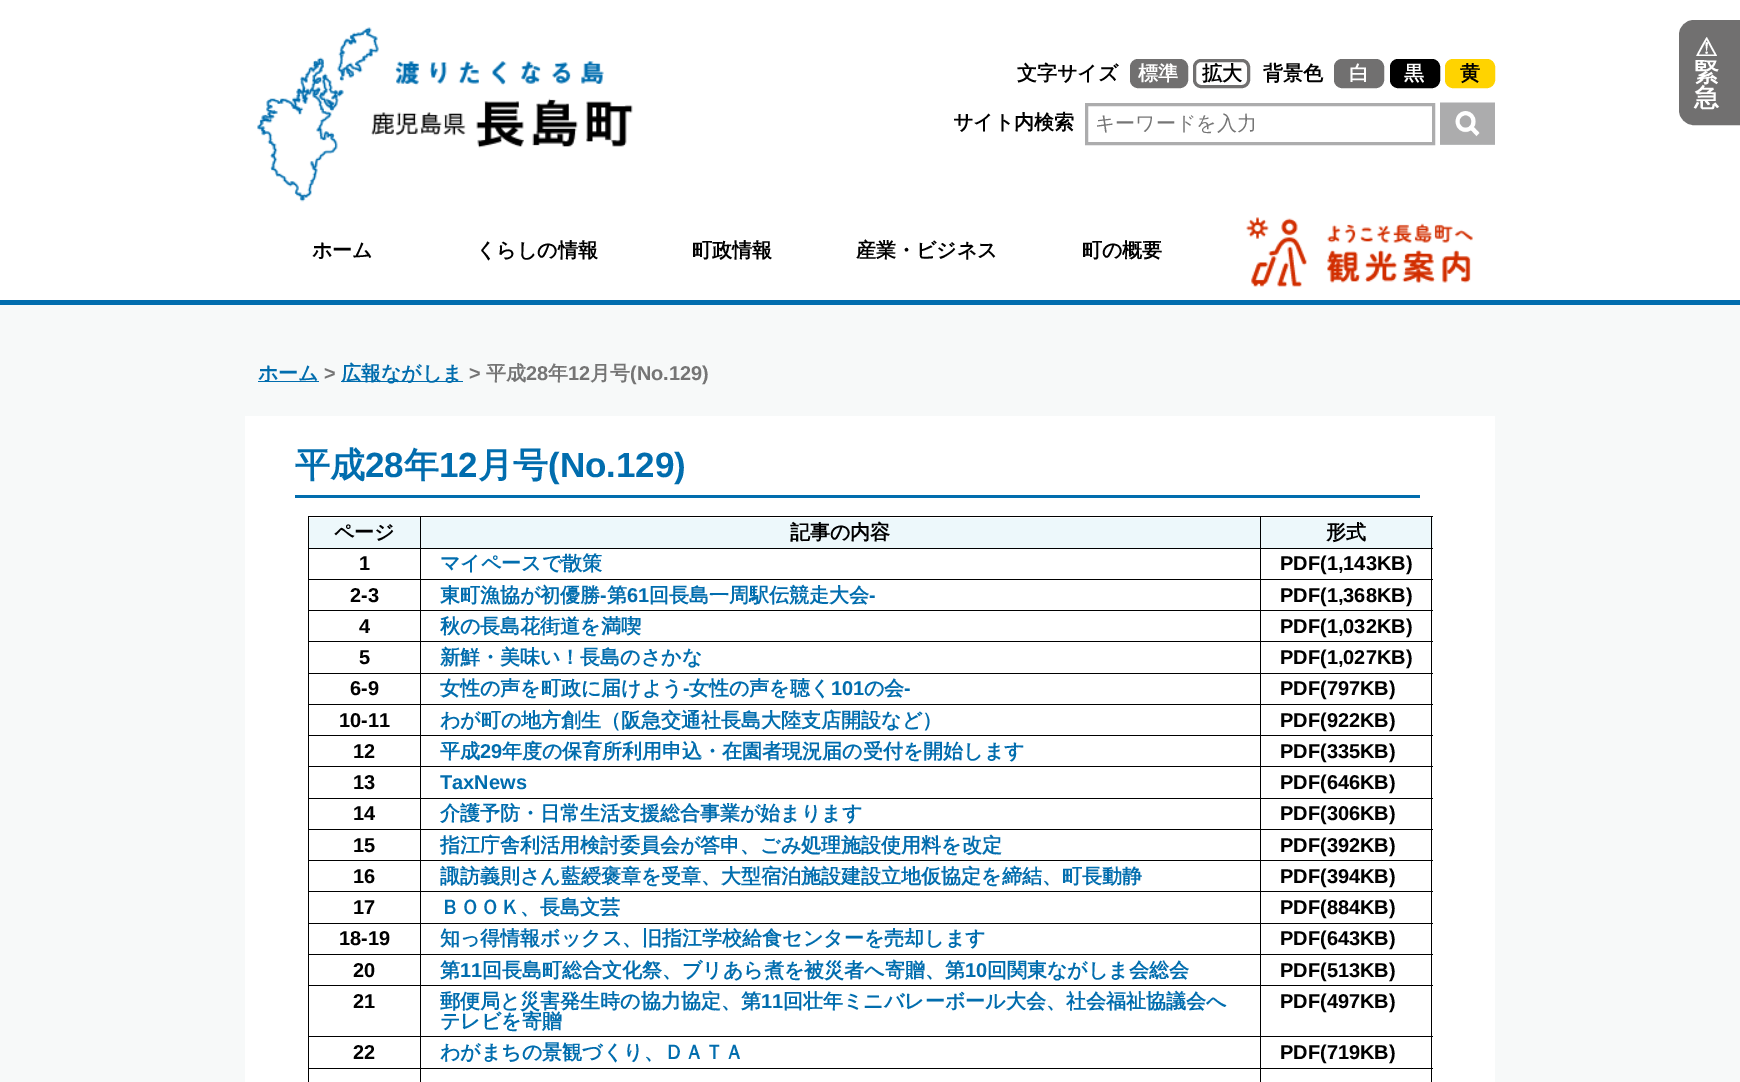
%!PS-Adobe-3.0
%%BoundingBox: 0 0 1740 1082
%%LanguageLevel: 3
%%Pages: 1
%%EndComments
%%BeginProlog
/setink { 3 { 255 div 3 1 roll } repeat setrgbcolor } def
/usefont { [ exch dup neg 0 0 3 -1 roll 0 0 ] selectfont } def
/drawtext { setink usefont moveto show } def
/fillbox { setink rectfill } def
/rrect { 5 dict begin { /r /h /w /y /x } { exch def } forall
  x r add y moveto x w add y 2 copy h add r arct x w add y h add x 1 index r arct
  x y h add x y r arct x y 2 copy exch w add exch r arct closepath end } def
/drawimage { 5 dict begin { /h /w /y /x /name } { exch def } forall
  gsave x y translate w h scale
  w h 8 [w 0 0 h 0 0] name (r) file false 3 colorimage grestore end } def
%%EndProlog
%%BeginSetup
<< /PageSize [1740 1082] >> setpagedevice
%%EndSetup
%%Page: 1 1
0 1082 translate 1 -1 scale
4 setmiterlimit
0 0 1740 1082 255 255 255 fillbox
(assets/img1.rgb) 257 27 376 175 drawimage
(文字サイズ) 1017 80 /WenQuanYiZenHei-Bold 20 0 0 0 drawtext
113 112 112 setink
1131.5 60.5 55 26 6.5 rrect gsave fill grestore
3 setlinewidth
stroke
(標準) 1138 80 /WenQuanYiZenHei-Bold 20 255 255 255 drawtext
113 112 112 setink
1194.5 60.5 54 26 6.5 rrect stroke
(拡大) 1202 80 /WenQuanYiZenHei-Bold 20 0 0 0 drawtext
(背景色) 1263 80 /WenQuanYiZenHei-Bold 20 0 0 0 drawtext
113 112 112 setink
1335.5 60.5 47 26 6.5 rrect gsave fill grestore
stroke
(白) 1349 80 /WenQuanYiZenHei-Bold 20 255 255 255 drawtext
0 0 0 setink
1391.5 60.5 47 26 6.5 rrect gsave fill grestore
stroke
(黒) 1404 80 /WenQuanYiZenHei-Bold 20 255 255 255 drawtext
255 211 0 setink
1446.5 60.5 47 26 6.5 rrect gsave fill grestore
stroke
(黄) 1460 80 /WenQuanYiZenHei-Bold 20 0 0 0 drawtext
(サイト内検索) 953 129 /WenQuanYiZenHei-Bold 20 0 0 0 drawtext
172 172 173 setink
1086.5 104.5 347 39 rectstroke
(キーワードを入力) 1095 130 /WenQuanYiZenHei-Medium 20 117 117 117 drawtext
(assets/img2.rgb) 1440 102 55 43 drawimage
113 112 112 setink
1694 21.5 moveto 1738.5 21.5 lineto 1738.5 123.5 lineto 1694 123.5 lineto 1686.5 123.5 1680.5 117.5 1680.5 110 curveto 1680.5 35 lineto 1680.5 27.5 1686.5 21.5 1694 21.5 curveto closepath gsave fill grestore
stroke
(⚠) 1695 56 /DejaVuSans-Bold 25 255 255 255 drawtext
(緊) 1694 81 /WenQuanYiZenHei-Bold 25 255 255 255 drawtext
(急) 1694 106 /WenQuanYiZenHei-Bold 25 255 255 255 drawtext
(ホーム) 312 257 /WenQuanYiZenHei-Bold 20 0 0 0 drawtext
(くらしの情報) 476 257 /WenQuanYiZenHei-Bold 20 0 0 0 drawtext
(町政情報) 692 257 /WenQuanYiZenHei-Bold 20 0 0 0 drawtext
(産業・ビジネス) 856 257 /WenQuanYiZenHei-Bold 20 0 0 0 drawtext
(町の概要) 1082 257 /WenQuanYiZenHei-Bold 20 0 0 0 drawtext
(assets/img3.rgb) 1246 217 227 70 drawimage
0 305 1740 777 247 249 249 fillbox
0 300 1740 5 1 109 174 fillbox
258 381 61 1 1 109 174 fillbox
(ホーム) 258 380 /WenQuanYiZenHei-Bold 20 1 109 174 drawtext
(>) 324 380 /LiberationSans-Bold 20 117 117 117 drawtext
341 381 122 1 1 109 174 fillbox
(広報ながしま) 341 380 /WenQuanYiZenHei-Bold 20 1 109 174 drawtext
(>) 469 380 /LiberationSans-Bold 20 117 117 117 drawtext
(平成) 486 380 /WenQuanYiZenHei-Bold 20 117 117 117 drawtext
(28) 526 380 /LiberationSans-Bold 20 117 117 117 drawtext
(年) 548 380 /WenQuanYiZenHei-Bold 20 117 117 117 drawtext
(12) 568 380 /LiberationSans-Bold 20 117 117 117 drawtext
(月号) 590 380 /WenQuanYiZenHei-Bold 20 117 117 117 drawtext
(\(No.129\)) 630 380 /LiberationSans-Bold 20 117 117 117 drawtext
245 416 1250 666 255 255 255 fillbox
295 495 1125 3 1 109 174 fillbox
(平成) 295 477 /WenQuanYiZenHei-Bold 35 1 109 174 drawtext
(28) 365 477 /LiberationSans-Bold 35 1 109 174 drawtext
(年) 404 477 /WenQuanYiZenHei-Bold 35 1 109 174 drawtext
(12) 439 477 /LiberationSans-Bold 35 1 109 174 drawtext
(月号) 478 477 /WenQuanYiZenHei-Bold 35 1 109 174 drawtext
(\(No.129\)) 548 477 /LiberationSans-Bold 35 1 109 174 drawtext
308 516 1125 1 0 0 0 fillbox
1261 518 172 30 237 248 251 fillbox
1431 516 1 566 0 0 0 fillbox
308 516 1 566 0 0 0 fillbox
309 518 111 30 237 248 251 fillbox
(ページ) 334 539 /WenQuanYiZenHei-Bold 20 0 0 0 drawtext
421 518 839 30 237 248 251 fillbox
1260 548 173 1 0 0 0 fillbox
1260 579 173 1 0 0 0 fillbox
1260 610 173 1 0 0 0 fillbox
1260 641 173 1 0 0 0 fillbox
1260 673 173 1 0 0 0 fillbox
1260 704 173 1 0 0 0 fillbox
1260 735 173 1 0 0 0 fillbox
1260 766 173 1 0 0 0 fillbox
1260 798 173 1 0 0 0 fillbox
1260 829 173 1 0 0 0 fillbox
1260 860 173 1 0 0 0 fillbox
1260 891 173 1 0 0 0 fillbox
1260 923 173 1 0 0 0 fillbox
1260 954 173 1 0 0 0 fillbox
1260 985 173 1 0 0 0 fillbox
1260 1036 173 1 0 0 0 fillbox
1260 1068 173 1 0 0 0 fillbox
1260 1068 1 14 0 0 0 fillbox
420 1068 841 1 0 0 0 fillbox
1260 1036 1 33 0 0 0 fillbox
420 1036 841 1 0 0 0 fillbox
1260 985 1 53 0 0 0 fillbox
420 985 841 1 0 0 0 fillbox
1260 954 1 32 0 0 0 fillbox
420 954 841 1 0 0 0 fillbox
1260 923 1 32 0 0 0 fillbox
420 923 841 1 0 0 0 fillbox
1260 891 1 33 0 0 0 fillbox
420 891 841 1 0 0 0 fillbox
1260 860 1 33 0 0 0 fillbox
420 860 841 1 0 0 0 fillbox
1260 829 1 32 0 0 0 fillbox
420 829 841 1 0 0 0 fillbox
1260 798 1 32 0 0 0 fillbox
420 798 841 1 0 0 0 fillbox
1260 766 1 33 0 0 0 fillbox
420 766 841 1 0 0 0 fillbox
1260 735 1 33 0 0 0 fillbox
420 735 841 1 0 0 0 fillbox
1260 704 1 32 0 0 0 fillbox
420 704 841 1 0 0 0 fillbox
1260 673 1 32 0 0 0 fillbox
420 673 841 1 0 0 0 fillbox
1260 641 1 33 0 0 0 fillbox
420 641 841 1 0 0 0 fillbox
1260 610 1 33 0 0 0 fillbox
420 610 841 1 0 0 0 fillbox
1260 579 1 32 0 0 0 fillbox
420 579 841 1 0 0 0 fillbox
1260 548 1 32 0 0 0 fillbox
420 548 841 1 0 0 0 fillbox
420 1068 1 14 0 0 0 fillbox
308 1068 113 1 0 0 0 fillbox
420 1036 1 33 0 0 0 fillbox
308 1036 113 1 0 0 0 fillbox
420 985 1 53 0 0 0 fillbox
308 985 113 1 0 0 0 fillbox
420 954 1 32 0 0 0 fillbox
308 954 113 1 0 0 0 fillbox
420 923 1 32 0 0 0 fillbox
308 923 113 1 0 0 0 fillbox
420 891 1 33 0 0 0 fillbox
308 891 113 1 0 0 0 fillbox
420 860 1 33 0 0 0 fillbox
308 860 113 1 0 0 0 fillbox
420 829 1 32 0 0 0 fillbox
308 829 113 1 0 0 0 fillbox
420 798 1 32 0 0 0 fillbox
308 798 113 1 0 0 0 fillbox
420 766 1 33 0 0 0 fillbox
308 766 113 1 0 0 0 fillbox
420 735 1 33 0 0 0 fillbox
308 735 113 1 0 0 0 fillbox
420 704 1 32 0 0 0 fillbox
308 704 113 1 0 0 0 fillbox
420 673 1 32 0 0 0 fillbox
308 673 113 1 0 0 0 fillbox
420 641 1 33 0 0 0 fillbox
308 641 113 1 0 0 0 fillbox
420 610 1 33 0 0 0 fillbox
308 610 113 1 0 0 0 fillbox
420 579 1 32 0 0 0 fillbox
308 579 113 1 0 0 0 fillbox
420 548 1 32 0 0 0 fillbox
308 548 113 1 0 0 0 fillbox
420 516 1 33 0 0 0 fillbox
(記事の内容) 790 539 /WenQuanYiZenHei-Bold 20 0 0 0 drawtext
1260 516 1 33 0 0 0 fillbox
(形式) 1326 539 /WenQuanYiZenHei-Bold 20 0 0 0 drawtext
(1) 359 570 /LiberationSans-Bold 20 0 0 0 drawtext
(マイペースで散策) 440 570 /WenQuanYiZenHei-Bold 20 1 109 174 drawtext
(PDF\(1,143KB\)) 1280 570 /LiberationSans-Bold 20 0 0 0 drawtext
(2-3) 350 602 /LiberationSans-Bold 20 0 0 0 drawtext
(東町漁協が初優勝) 440 602 /WenQuanYiZenHei-Bold 20 1 109 174 drawtext
(-) 600 602 /LiberationSans-Bold 20 1 109 174 drawtext
(第) 607 602 /WenQuanYiZenHei-Bold 20 1 109 174 drawtext
(61) 627 602 /LiberationSans-Bold 20 1 109 174 drawtext
(回長島一周駅伝競走大会) 649 602 /WenQuanYiZenHei-Bold 20 1 109 174 drawtext
(-) 869 602 /LiberationSans-Bold 20 1 109 174 drawtext
(PDF\(1,368KB\)) 1280 602 /LiberationSans-Bold 20 0 0 0 drawtext
(4) 359 633 /LiberationSans-Bold 20 0 0 0 drawtext
(秋の長島花街道を満喫) 440 633 /WenQuanYiZenHei-Bold 20 1 109 174 drawtext
(PDF\(1,032KB\)) 1280 633 /LiberationSans-Bold 20 0 0 0 drawtext
(5) 359 664 /LiberationSans-Bold 20 0 0 0 drawtext
(新鮮・美味い！長島のさかな) 440 664 /WenQuanYiZenHei-Bold 20 1 109 174 drawtext
(PDF\(1,027KB\)) 1280 664 /LiberationSans-Bold 20 0 0 0 drawtext
(6-9) 350 695 /LiberationSans-Bold 20 0 0 0 drawtext
(女性の声を町政に届けよう) 440 695 /WenQuanYiZenHei-Bold 20 1 109 174 drawtext
(-) 683 695 /LiberationSans-Bold 20 1 109 174 drawtext
(女性の声を聴く) 689 695 /WenQuanYiZenHei-Bold 20 1 109 174 drawtext
(101) 831 695 /LiberationSans-Bold 20 1 109 174 drawtext
(の会) 864 695 /WenQuanYiZenHei-Bold 20 1 109 174 drawtext
(-) 904 695 /LiberationSans-Bold 20 1 109 174 drawtext
(PDF\(797KB\)) 1280 695 /LiberationSans-Bold 20 0 0 0 drawtext
(10-11) 339 727 /LiberationSans-Bold 20 0 0 0 drawtext
(わが町の地方創生（阪急交通社長島大陸支店開設など）) 440 727 /WenQuanYiZenHei-Bold 20 1 109 174 drawtext
(PDF\(922KB\)) 1280 727 /LiberationSans-Bold 20 0 0 0 drawtext
(12) 353 758 /LiberationSans-Bold 20 0 0 0 drawtext
(平成) 440 758 /WenQuanYiZenHei-Bold 20 1 109 174 drawtext
(29) 480 758 /LiberationSans-Bold 20 1 109 174 drawtext
(年度の保育所利用申込・在園者現況届の受付を開始します) 502 758 /WenQuanYiZenHei-Bold 20 1 109 174 drawtext
(PDF\(335KB\)) 1280 758 /LiberationSans-Bold 20 0 0 0 drawtext
(13) 353 789 /LiberationSans-Bold 20 0 0 0 drawtext
(TaxNews) 440 789 /LiberationSans-Bold 20 1 109 174 drawtext
(PDF\(646KB\)) 1280 789 /LiberationSans-Bold 20 0 0 0 drawtext
(14) 353 820 /LiberationSans-Bold 20 0 0 0 drawtext
(介護予防・日常生活支援総合事業が始まります) 440 820 /WenQuanYiZenHei-Bold 20 1 109 174 drawtext
(PDF\(306KB\)) 1280 820 /LiberationSans-Bold 20 0 0 0 drawtext
(15) 353 852 /LiberationSans-Bold 20 0 0 0 drawtext
(指江庁舎利活用検討委員会が答申、ごみ処理施設使用料を改定) 440 852 /WenQuanYiZenHei-Bold 20 1 109 174 drawtext
(PDF\(392KB\)) 1280 852 /LiberationSans-Bold 20 0 0 0 drawtext
(16) 353 883 /LiberationSans-Bold 20 0 0 0 drawtext
(諏訪義則さん藍綬褒章を受章、大型宿泊施設建設立地仮協定を締結、町長動静) 440 883 /WenQuanYiZenHei-Bold 20 1 109 174 drawtext
(PDF\(394KB\)) 1280 883 /LiberationSans-Bold 20 0 0 0 drawtext
(17) 353 914 /LiberationSans-Bold 20 0 0 0 drawtext
(ＢＯＯＫ、長島文芸) 440 914 /WenQuanYiZenHei-Bold 20 1 109 174 drawtext
(PDF\(884KB\)) 1280 914 /LiberationSans-Bold 20 0 0 0 drawtext
(18-19) 339 945 /LiberationSans-Bold 20 0 0 0 drawtext
(知っ得情報ボックス、旧指江学校給食センターを売却します) 440 945 /WenQuanYiZenHei-Bold 20 1 109 174 drawtext
(PDF\(643KB\)) 1280 945 /LiberationSans-Bold 20 0 0 0 drawtext
(20) 353 977 /LiberationSans-Bold 20 0 0 0 drawtext
(第) 440 977 /WenQuanYiZenHei-Bold 20 1 109 174 drawtext
(11) 460 977 /LiberationSans-Bold 20 1 109 174 drawtext
(回長島町総合文化祭、ブリあら煮を被災者へ寄贈、第) 482 977 /WenQuanYiZenHei-Bold 20 1 109 174 drawtext
(10) 965 977 /LiberationSans-Bold 20 1 109 174 drawtext
(回関東ながしま会総会) 987 977 /WenQuanYiZenHei-Bold 20 1 109 174 drawtext
(PDF\(513KB\)) 1280 977 /LiberationSans-Bold 20 0 0 0 drawtext
(21) 353 1008 /LiberationSans-Bold 20 0 0 0 drawtext
(郵便局と災害発生時の協力協定、第) 440 1008 /WenQuanYiZenHei-Bold 20 1 109 174 drawtext
(11) 761 1008 /LiberationSans-Bold 20 1 109 174 drawtext
(回壮年ミニバレーボール大会、社会福祉協議会へ) 783 1008 /WenQuanYiZenHei-Bold 20 1 109 174 drawtext
(テレビを寄贈) 440 1028 /WenQuanYiZenHei-Bold 20 1 109 174 drawtext
(PDF\(497KB\)) 1280 1008 /LiberationSans-Bold 20 0 0 0 drawtext
(22) 353 1059 /LiberationSans-Bold 20 0 0 0 drawtext
(わがまちの景観づくり、ＤＡＴＡ) 440 1059 /WenQuanYiZenHei-Bold 20 1 109 174 drawtext
(PDF\(719KB\)) 1280 1059 /LiberationSans-Bold 20 0 0 0 drawtext
showpage
%%EOF
